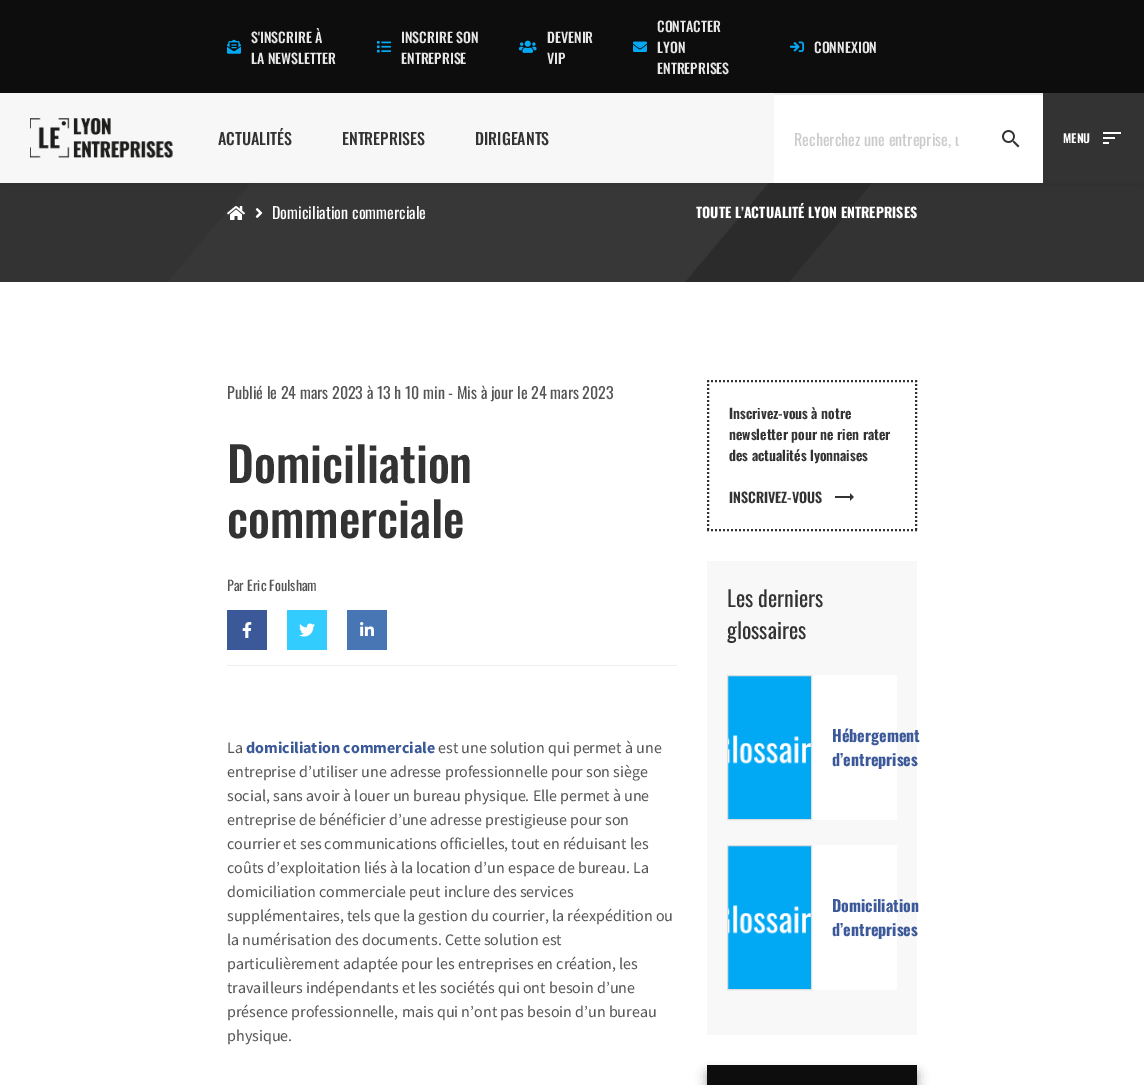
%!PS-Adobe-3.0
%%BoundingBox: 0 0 1144 1085
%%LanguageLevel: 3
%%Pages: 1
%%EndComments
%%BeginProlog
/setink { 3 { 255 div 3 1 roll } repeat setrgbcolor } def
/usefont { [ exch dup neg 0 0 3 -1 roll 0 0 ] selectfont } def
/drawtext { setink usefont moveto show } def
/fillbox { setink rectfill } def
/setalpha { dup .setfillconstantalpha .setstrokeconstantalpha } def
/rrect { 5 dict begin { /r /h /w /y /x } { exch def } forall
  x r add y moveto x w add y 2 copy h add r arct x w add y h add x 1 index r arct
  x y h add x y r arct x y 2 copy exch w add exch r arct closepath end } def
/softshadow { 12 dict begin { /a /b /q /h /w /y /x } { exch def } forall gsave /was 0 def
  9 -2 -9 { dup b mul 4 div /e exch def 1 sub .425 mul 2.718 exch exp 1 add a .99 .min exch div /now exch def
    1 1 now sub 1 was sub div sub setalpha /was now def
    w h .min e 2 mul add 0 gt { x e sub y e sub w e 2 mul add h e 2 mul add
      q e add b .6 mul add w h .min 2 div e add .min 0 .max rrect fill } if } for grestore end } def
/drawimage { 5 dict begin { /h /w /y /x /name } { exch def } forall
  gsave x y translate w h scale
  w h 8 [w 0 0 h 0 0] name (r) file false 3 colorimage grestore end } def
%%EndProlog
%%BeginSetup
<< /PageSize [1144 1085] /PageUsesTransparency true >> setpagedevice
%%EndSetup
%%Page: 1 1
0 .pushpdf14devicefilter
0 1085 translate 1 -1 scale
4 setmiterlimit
0 0 1144 1085 255 255 255 fillbox
0 0 1144 93 13 13 13 fillbox
(S'INSCRIRE À) 251 43 /Oswald-Medium 14 231 231 231 drawtext
(assets/img1.rgb) 227 39 14 15 drawimage
(LA NEWSLETTER) 251 64 /Oswald-Medium 14 231 231 231 drawtext
(INSCRIRE SON) 401 43 /Oswald-Medium 14 231 231 231 drawtext
(assets/img2.rgb) 377 41 14 12 drawimage
(ENTREPRISE) 401 64 /Oswald-Medium 14 231 231 231 drawtext
(DEVENIR) 547 43 /Oswald-Medium 14 231 231 231 drawtext
(assets/img3.rgb) 519 40 18 13 drawimage
(VIP) 547 64 /Oswald-Medium 14 231 231 231 drawtext
(CONTACTER) 657 32 /Oswald-Medium 14 231 231 231 drawtext
(assets/img4.rgb) 633 41 14 11 drawimage
(LYON) 657 53 /Oswald-Medium 14 231 231 231 drawtext
(ENTREPRISES) 657 74 /Oswald-Medium 14 231 231 231 drawtext
(assets/img5.rgb) 790 41 14 11 drawimage
(CONNEXION) 814 53 /Oswald-Medium 14 231 231 231 drawtext
0 183 1144 99 51 51 51 fillbox
43 43 43 setink
804 141 moveto 907 141 lineto 789 282 lineto 685 282 lineto closepath fill
0.1 setalpha
89 89 89 setink
286 141 moveto 804 141 lineto 685 282 lineto 168 282 lineto closepath fill
1 setalpha
0 0 0 setink
0 97 1144 90 0 2 0.06 softshadow
0 93 774 90 247 247 247 fillbox
(assets/img6.rgb) 30 118 143 40 drawimage
(ACTUALITÉS) 218 145 /Oswald-Medium 16 51 51 51 drawtext
(ENTREPRISES) 342 145 /Oswald-Medium 16 51 51 51 drawtext
(DIRIGEANTS) 475 145 /Oswald-Medium 16 51 51 51 drawtext
774 93 269 2 238 238 238 fillbox
774 95 269 88 255 255 255 fillbox
(assets/img7.rgb) 1002 130 18 18 drawimage
gsave
794 127 165 24 rectclip
(Recherchez une entreprise, u) 794 146 /Oswald-Regular 16 203 203 203 drawtext
grestore
1043 93 101 90 51 51 51 fillbox
(MENU) 1063 143 /Oswald-SemiBold 12 255 255 255 drawtext
(assets/img8.rgb) 1103 132 18 12 drawimage
(assets/img9.rgb) 227 206 18 14 drawimage
(assets/img10.rgb) 255 208 8 10 drawimage
(Domiciliation commerciale) 272 219 /Oswald-Regular 16 255 255 255 drawtext
(TOUTE L’ACTUALITÉ LYON ENTREPRISES) 696 218 /Oswald-Bold 14 255 255 255 drawtext
(Publié le 24 mars 2023 à 13 h 10 min - Mis à jour le 24 mars 2023) 227 399 /Oswald-Regular 16 85 85 85 drawtext
(Domiciliation) 227 483 /Oswald-Medium 48 51 51 51 drawtext
(commerciale) 227 538 /Oswald-Medium 48 51 51 51 drawtext
(Par Eric Foulsham) 227 591 /Oswald-Regular 14 85 85 85 drawtext
227 665 450 1 238 238 238 fillbox
227 610 40 40 59 89 152 fillbox
(assets/img11.rgb) 242 622 10 16 drawimage
287 610 40 40 51 204 255 fillbox
(assets/img12.rgb) 299 623 16 14 drawimage
347 610 40 40 72 117 180 fillbox
(assets/img13.rgb) 360 622 14 14 drawimage
(La) 227 753 /SourceSansPro-Regular 16 85 85 85 drawtext
(domiciliation commerciale) 246 753 /SourceSansPro-Bold 16 59 89 152 drawtext
(est une solution qui permet à une) 438 753 /SourceSansPro-Regular 16 85 85 85 drawtext
(entreprise d’utiliser une adresse professionnelle pour son siège) 227 777 /SourceSansPro-Regular 16 85 85 85 drawtext
(social, sans avoir à louer un bureau physique. Elle permet à une) 227 801 /SourceSansPro-Regular 16 85 85 85 drawtext
(entreprise de bénéficier d’une adresse prestigieuse pour son) 227 825 /SourceSansPro-Regular 16 85 85 85 drawtext
(courrier et ses communications officielles, tout en réduisant les) 227 849 /SourceSansPro-Regular 16 85 85 85 drawtext
(coûts d’exploitation liés à la location d’un espace de bureau. La) 227 873 /SourceSansPro-Regular 16 85 85 85 drawtext
(domiciliation commerciale peut inclure des services) 227 897 /SourceSansPro-Regular 16 85 85 85 drawtext
(supplémentaires, tels que la gestion du courrier, la réexpédition ou) 227 921 /SourceSansPro-Regular 16 85 85 85 drawtext
(la numérisation des documents. Cette solution est) 227 945 /SourceSansPro-Regular 16 85 85 85 drawtext
(particulièrement adaptée pour les entreprises en création, les) 227 969 /SourceSansPro-Regular 16 85 85 85 drawtext
(travailleurs indépendants et les sociétés qui ont besoin d’une) 227 993 /SourceSansPro-Regular 16 85 85 85 drawtext
(présence professionnelle, mais qui n’ont pas besoin d’un bureau) 227 1017 /SourceSansPro-Regular 16 85 85 85 drawtext
(physique.) 227 1041 /SourceSansPro-Regular 16 85 85 85 drawtext
51 51 51 setink
2 setlinewidth
[2 2] 0 setdash
707 381 moveto 917 381 lineto stroke
916 380 moveto 916 531 lineto stroke
707 530 moveto 917 530 lineto stroke
708 380 moveto 708 531 lineto stroke
(Inscrivez-vous à notre) 729 419 /Oswald-SemiBold 14 51 51 51 drawtext
(newsletter pour ne rien rater) 729 440 /Oswald-SemiBold 14 51 51 51 drawtext
(des actualités lyonnaises) 729 461 /Oswald-SemiBold 14 51 51 51 drawtext
(INSCRIVEZ-VOUS) 729 503 /Oswald-SemiBold 14 51 51 51 drawtext
(assets/img14.rgb) 835 493 19 8 drawimage
707 561 210 474 248 248 248 fillbox
(Les derniers) 727 607 /Oswald-Regular 22 51 51 51 drawtext
(glossaires) 727 639 /Oswald-Regular 22 51 51 51 drawtext
812 675 85 145 255 255 255 fillbox
(assets/img15.rgb) 728 676 83 143 drawimage
221 221 221 setink
1 setlinewidth
[] 0 setdash
727.5 675.5 84 144 rectstroke
(Hébergement) 832 742 /Oswald-Bold 16 59 89 152 drawtext
(d’entreprises) 832 766 /Oswald-Bold 16 59 89 152 drawtext
812 845 85 145 255 255 255 fillbox
(assets/img15.rgb) 728 846 83 143 drawimage
221 221 221 setink
727.5 845.5 84 144 rectstroke
(Domiciliation) 832 912 /Oswald-Bold 16 59 89 152 drawtext
(d’entreprises) 832 936 /Oswald-Bold 16 59 89 152 drawtext
0 0 0 setink
707 1073 210 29 0 5.5 0.38 softshadow
707 1065 210 20 13 13 13 fillbox
.poppdf14devicefilter showpage
%%EOF
